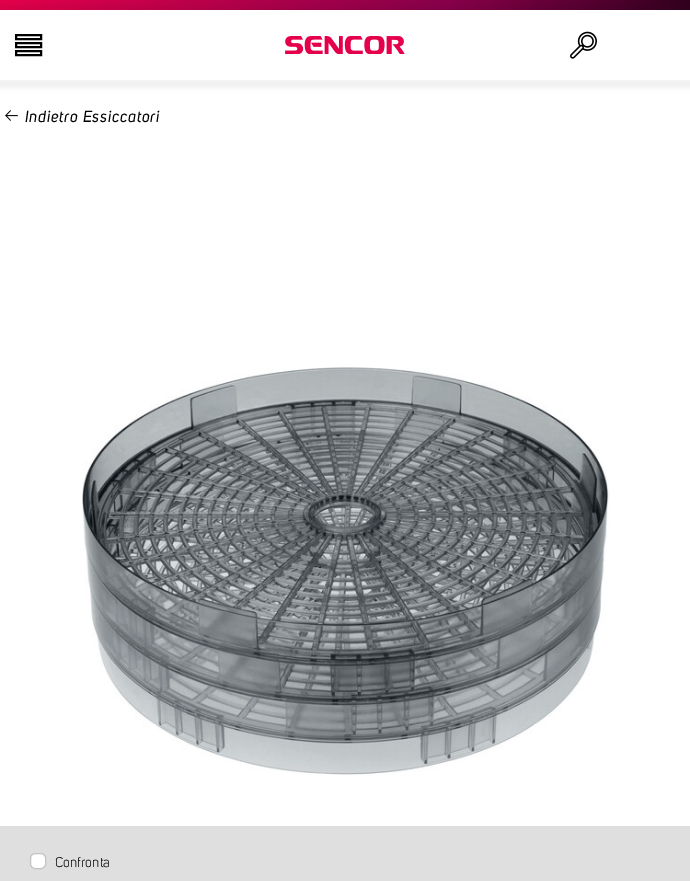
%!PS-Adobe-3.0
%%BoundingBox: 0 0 690 881
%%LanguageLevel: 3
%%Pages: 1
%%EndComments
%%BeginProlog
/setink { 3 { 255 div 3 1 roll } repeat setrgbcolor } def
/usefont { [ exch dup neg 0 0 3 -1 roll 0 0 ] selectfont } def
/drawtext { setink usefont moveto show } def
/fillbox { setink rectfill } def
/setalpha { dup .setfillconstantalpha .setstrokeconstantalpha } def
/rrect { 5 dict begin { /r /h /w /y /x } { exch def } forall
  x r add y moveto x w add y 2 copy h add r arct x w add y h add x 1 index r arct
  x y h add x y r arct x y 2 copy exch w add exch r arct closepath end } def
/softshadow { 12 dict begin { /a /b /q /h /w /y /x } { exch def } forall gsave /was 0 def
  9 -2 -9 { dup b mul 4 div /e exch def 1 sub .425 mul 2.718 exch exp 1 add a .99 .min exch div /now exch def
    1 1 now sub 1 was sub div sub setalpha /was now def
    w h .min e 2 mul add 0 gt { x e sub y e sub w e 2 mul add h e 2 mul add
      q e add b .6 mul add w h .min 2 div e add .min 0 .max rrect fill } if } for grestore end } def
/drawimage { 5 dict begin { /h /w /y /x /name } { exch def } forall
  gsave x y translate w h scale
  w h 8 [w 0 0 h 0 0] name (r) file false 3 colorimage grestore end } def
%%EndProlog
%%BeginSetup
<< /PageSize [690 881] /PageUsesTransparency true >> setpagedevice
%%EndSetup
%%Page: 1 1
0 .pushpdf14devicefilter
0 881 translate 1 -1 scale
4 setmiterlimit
0 0 690 881 223 223 223 fillbox
gsave 0 0 moveto 690 0 lineto 690 10 lineto 0 10 lineto closepath clip newpath
<< /ShadingType 2 /ColorSpace /DeviceRGB /Coords [690 5 0 5] /Extend [true true] /Function << /FunctionType 3 /Domain [0 1] /Functions [<< /FunctionType 2 /Domain [0 1] /C0 [0.192 0.004 0.114] /C1 [0.533 0 0.29] /N 1 >> << /FunctionType 2 /Domain [0 1] /C0 [0.533 0 0.29] /C1 [0.89 0 0.29] /N 1 >>] /Bounds [0.35] /Encode [0 1 0 1] >> >> shfill grestore
0 82 690 744 255 255 255 fillbox
0 0 1 setink
-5 6 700 82 0 2.5 0.05 softshadow
0 10 690 70 255 255 255 fillbox
0 80 690 2 243 243 243 fillbox
0 0 1 setink
2 setlinewidth
16 43 25 4 rectstroke
16 35 25 4 rectstroke
16 51 25 4 rectstroke
(assets/img1.rgb) 285 36 120 18 drawimage
(assets/img2.rgb) 570 31 27 28 drawimage
(assets/img3.rgb) 5 110 13 11 drawimage
/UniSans-Italic 16 usefont
25 122 moveto 0.6 0 (Indietro Essiccatori) ashow
(assets/img4.rgb) 82 367 528 409 drawimage
255 255 255 setink
30.5 853.5 15 15 4.5 rrect gsave fill grestore
195 194 194 setink
1 setlinewidth
stroke
(Confronta) 55 867 /UniSans-Regular 14 0 0 1 drawtext
.poppdf14devicefilter showpage
%%EOF
